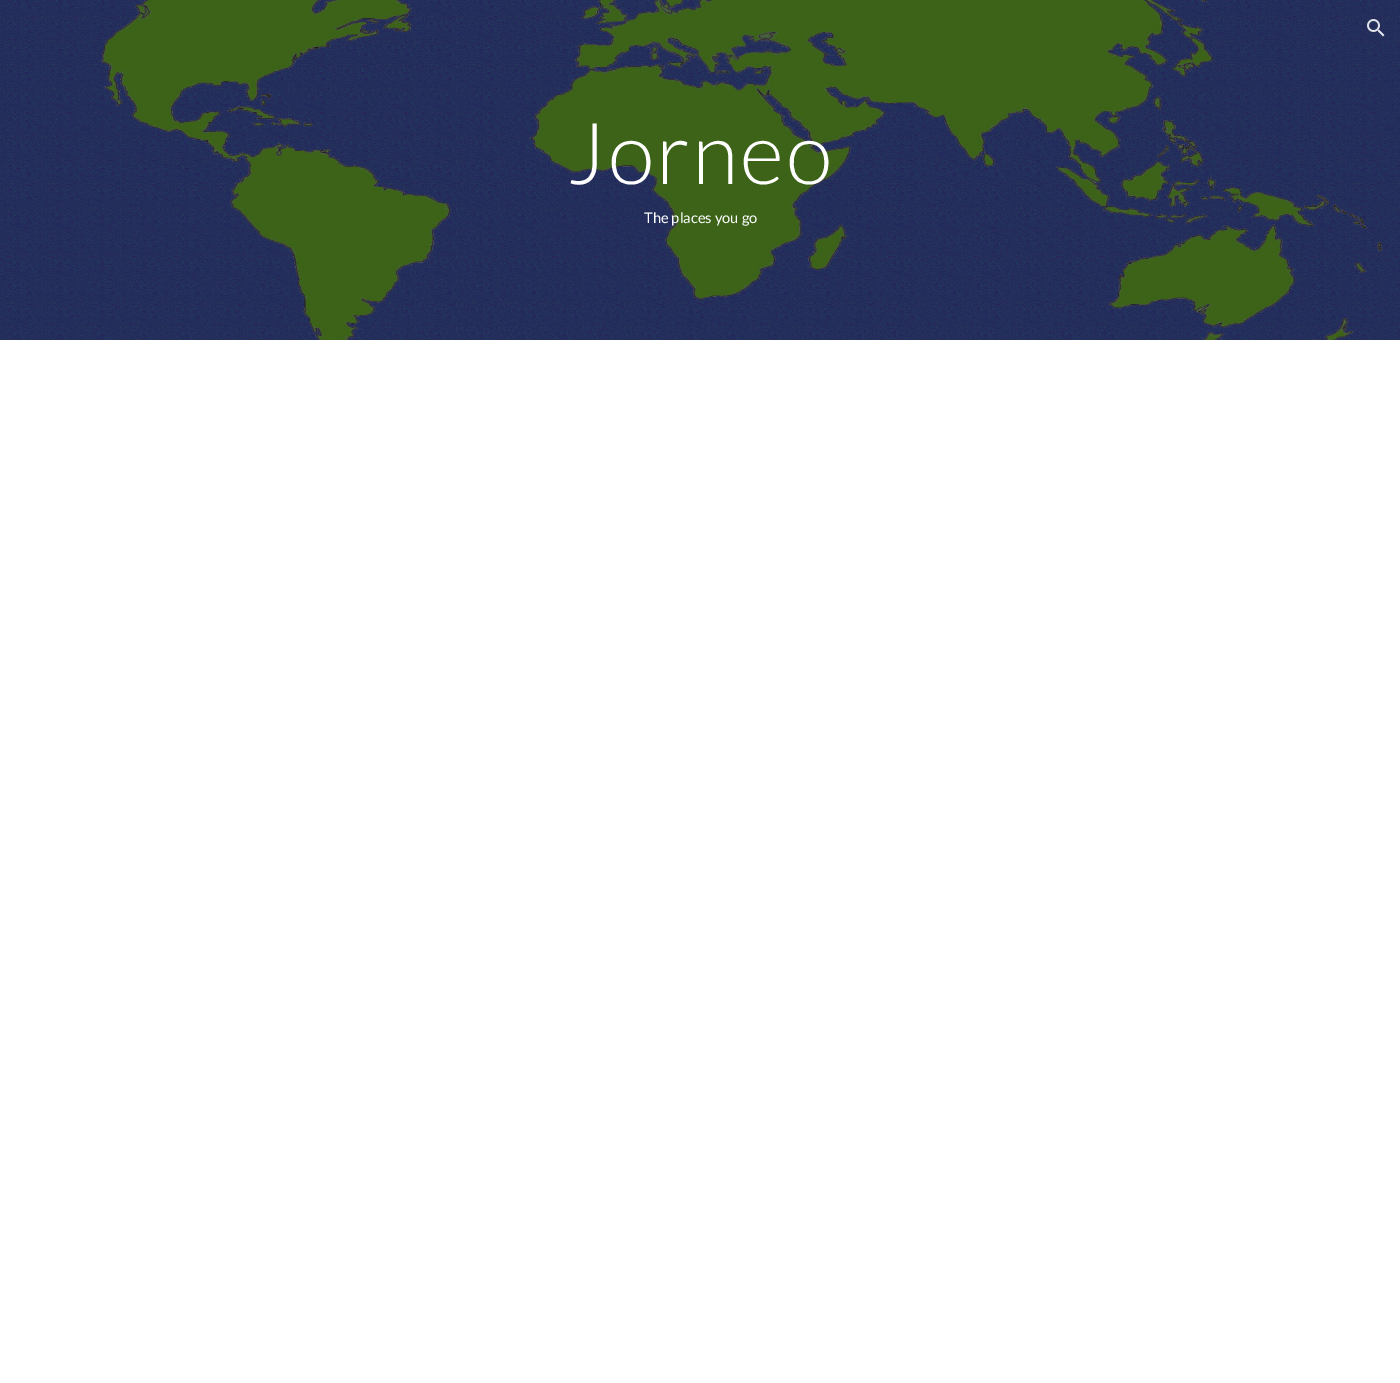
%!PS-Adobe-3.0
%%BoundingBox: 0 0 1400 1383
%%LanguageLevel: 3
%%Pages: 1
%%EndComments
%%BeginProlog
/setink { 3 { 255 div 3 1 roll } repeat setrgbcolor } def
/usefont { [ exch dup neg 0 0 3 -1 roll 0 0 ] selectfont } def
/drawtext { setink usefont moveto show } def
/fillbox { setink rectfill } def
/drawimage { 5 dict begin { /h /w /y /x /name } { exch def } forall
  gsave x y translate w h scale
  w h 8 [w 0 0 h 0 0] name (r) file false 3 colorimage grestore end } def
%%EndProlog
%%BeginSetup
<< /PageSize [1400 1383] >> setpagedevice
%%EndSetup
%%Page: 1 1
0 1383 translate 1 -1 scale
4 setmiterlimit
0 0 1400 1383 255 255 255 fillbox
(assets/img2.rgb) 0 0 1400 340 drawimage
(assets/img1.rgb) 1367 19 18 18 drawimage
/Lato-Light 85.5 usefont
567 184 moveto 2 0 (Jorneo) ashow
(The places you go) 644 223 /Lato-Regular 14.75 255 255 255 drawtext
showpage
%%EOF
